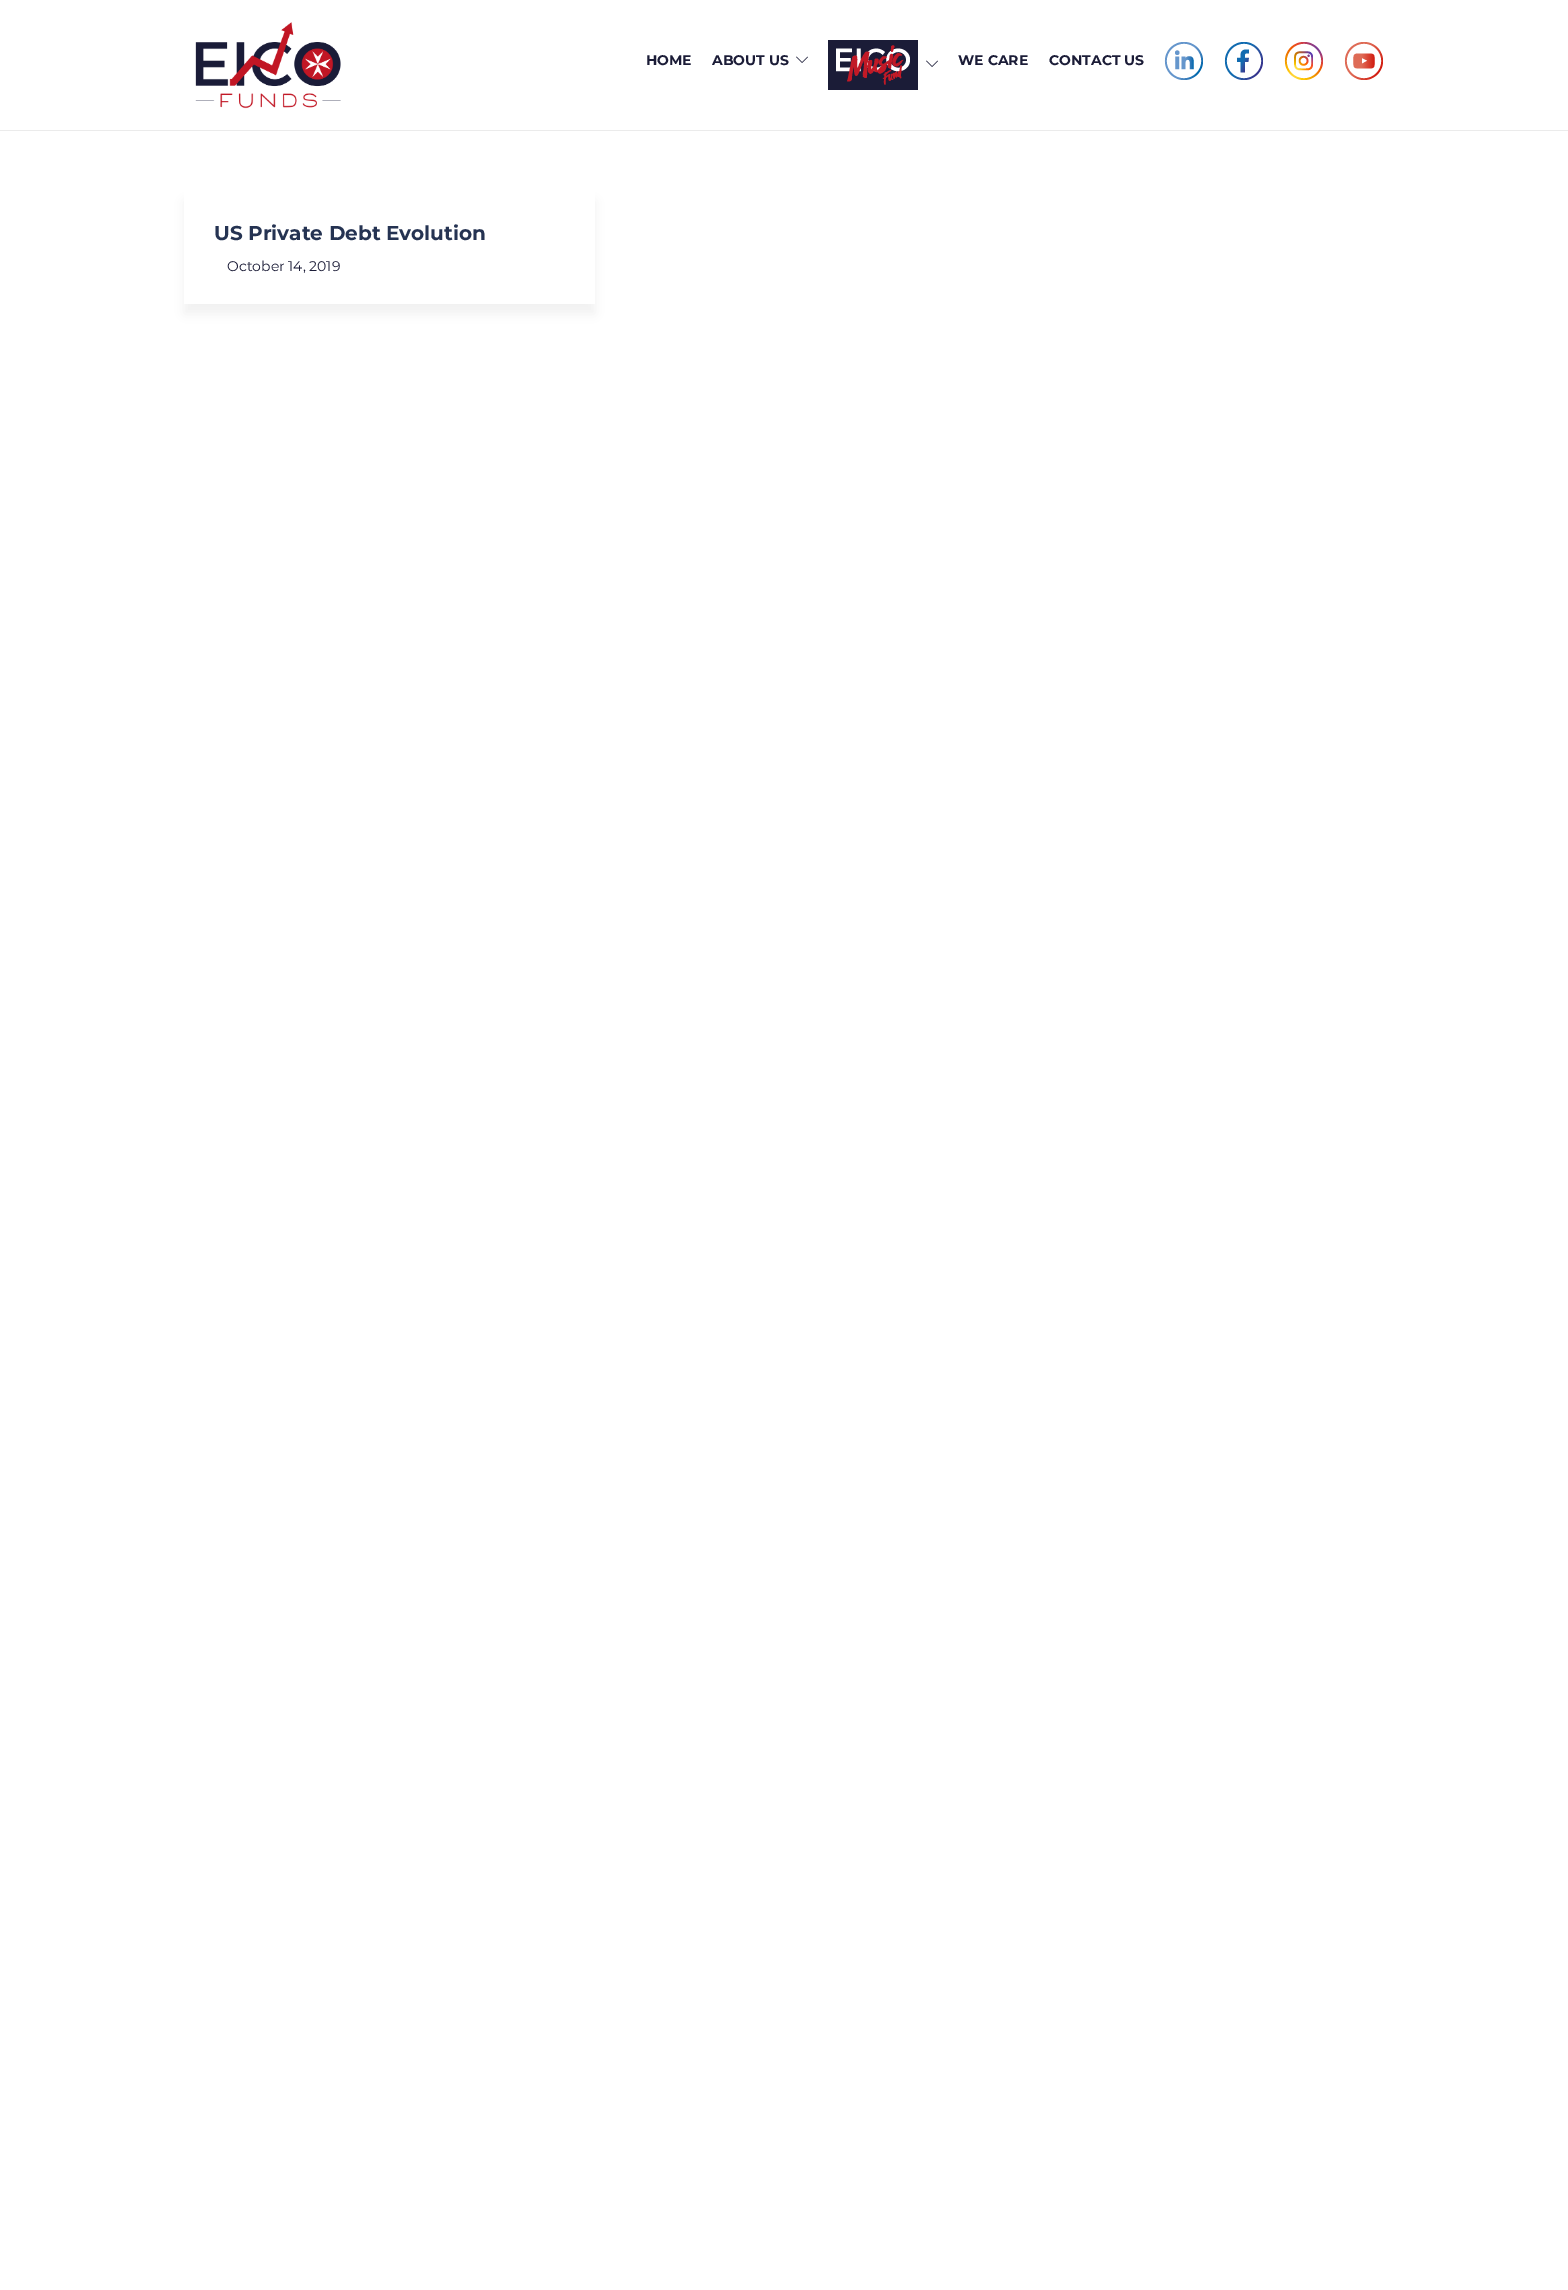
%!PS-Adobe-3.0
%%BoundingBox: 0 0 1568 2290
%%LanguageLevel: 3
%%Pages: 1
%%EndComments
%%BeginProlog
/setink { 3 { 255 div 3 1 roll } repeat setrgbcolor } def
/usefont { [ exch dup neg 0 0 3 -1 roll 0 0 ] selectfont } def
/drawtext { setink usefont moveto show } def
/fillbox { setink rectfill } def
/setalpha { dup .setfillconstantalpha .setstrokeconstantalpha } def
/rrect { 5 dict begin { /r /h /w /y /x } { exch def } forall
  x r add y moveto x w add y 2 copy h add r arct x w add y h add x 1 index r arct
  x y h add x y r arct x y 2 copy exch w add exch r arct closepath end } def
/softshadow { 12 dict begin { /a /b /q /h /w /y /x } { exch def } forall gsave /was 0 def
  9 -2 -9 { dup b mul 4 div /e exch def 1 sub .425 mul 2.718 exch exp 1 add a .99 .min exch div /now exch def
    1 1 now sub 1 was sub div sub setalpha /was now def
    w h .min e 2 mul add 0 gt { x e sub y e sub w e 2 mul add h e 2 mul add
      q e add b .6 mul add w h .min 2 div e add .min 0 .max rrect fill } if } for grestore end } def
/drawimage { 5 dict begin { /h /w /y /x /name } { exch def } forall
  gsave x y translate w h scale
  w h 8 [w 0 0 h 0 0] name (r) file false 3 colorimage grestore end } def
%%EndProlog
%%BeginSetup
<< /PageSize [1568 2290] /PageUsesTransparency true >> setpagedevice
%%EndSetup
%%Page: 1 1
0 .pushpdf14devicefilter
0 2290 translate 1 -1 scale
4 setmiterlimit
0 0 1568 2290 255 255 255 fillbox
0 130 1568 1 235 235 235 fillbox
(assets/img1.rgb) 195 22 146 87 drawimage
(HOME) 646 65 /Montserrat-Bold 14 27 28 55 drawtext
(ABOUT US) 712 65 /Montserrat-Bold 14 27 28 55 drawtext
(assets/img2.rgb) 796 56 12 7 drawimage
(assets/img3.rgb) 828 40 90 50 drawimage
(assets/img2.rgb) 926 60 12 7 drawimage
(WE CARE) 958 65 /Montserrat-Bold 14 27 28 55 drawtext
(CONTACT US) 1049 65 /Montserrat-Bold 14 27 28 55 drawtext
(assets/img4.rgb) 1164 42 39 38 drawimage
(assets/img5.rgb) 1224 42 39 38 drawimage
(assets/img6.rgb) 1284 42 39 38 drawimage
(assets/img7.rgb) 1344 42 39 38 drawimage
gsave
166 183 moveto 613 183 lineto 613 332 lineto 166 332 lineto closepath 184 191 moveto 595 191 lineto 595 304 lineto 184 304 lineto closepath eoclip newpath
0 0 0 setink
184 201 411 113 0 5.5 0.05 softshadow
grestore
(US Private Debt Evolution) 214 240 /Montserrat-Bold 20 37 51 82 drawtext
(October 14, 2019) 227 271 /Montserrat-Regular 14 27 28 55 drawtext
.poppdf14devicefilter showpage
%%EOF
